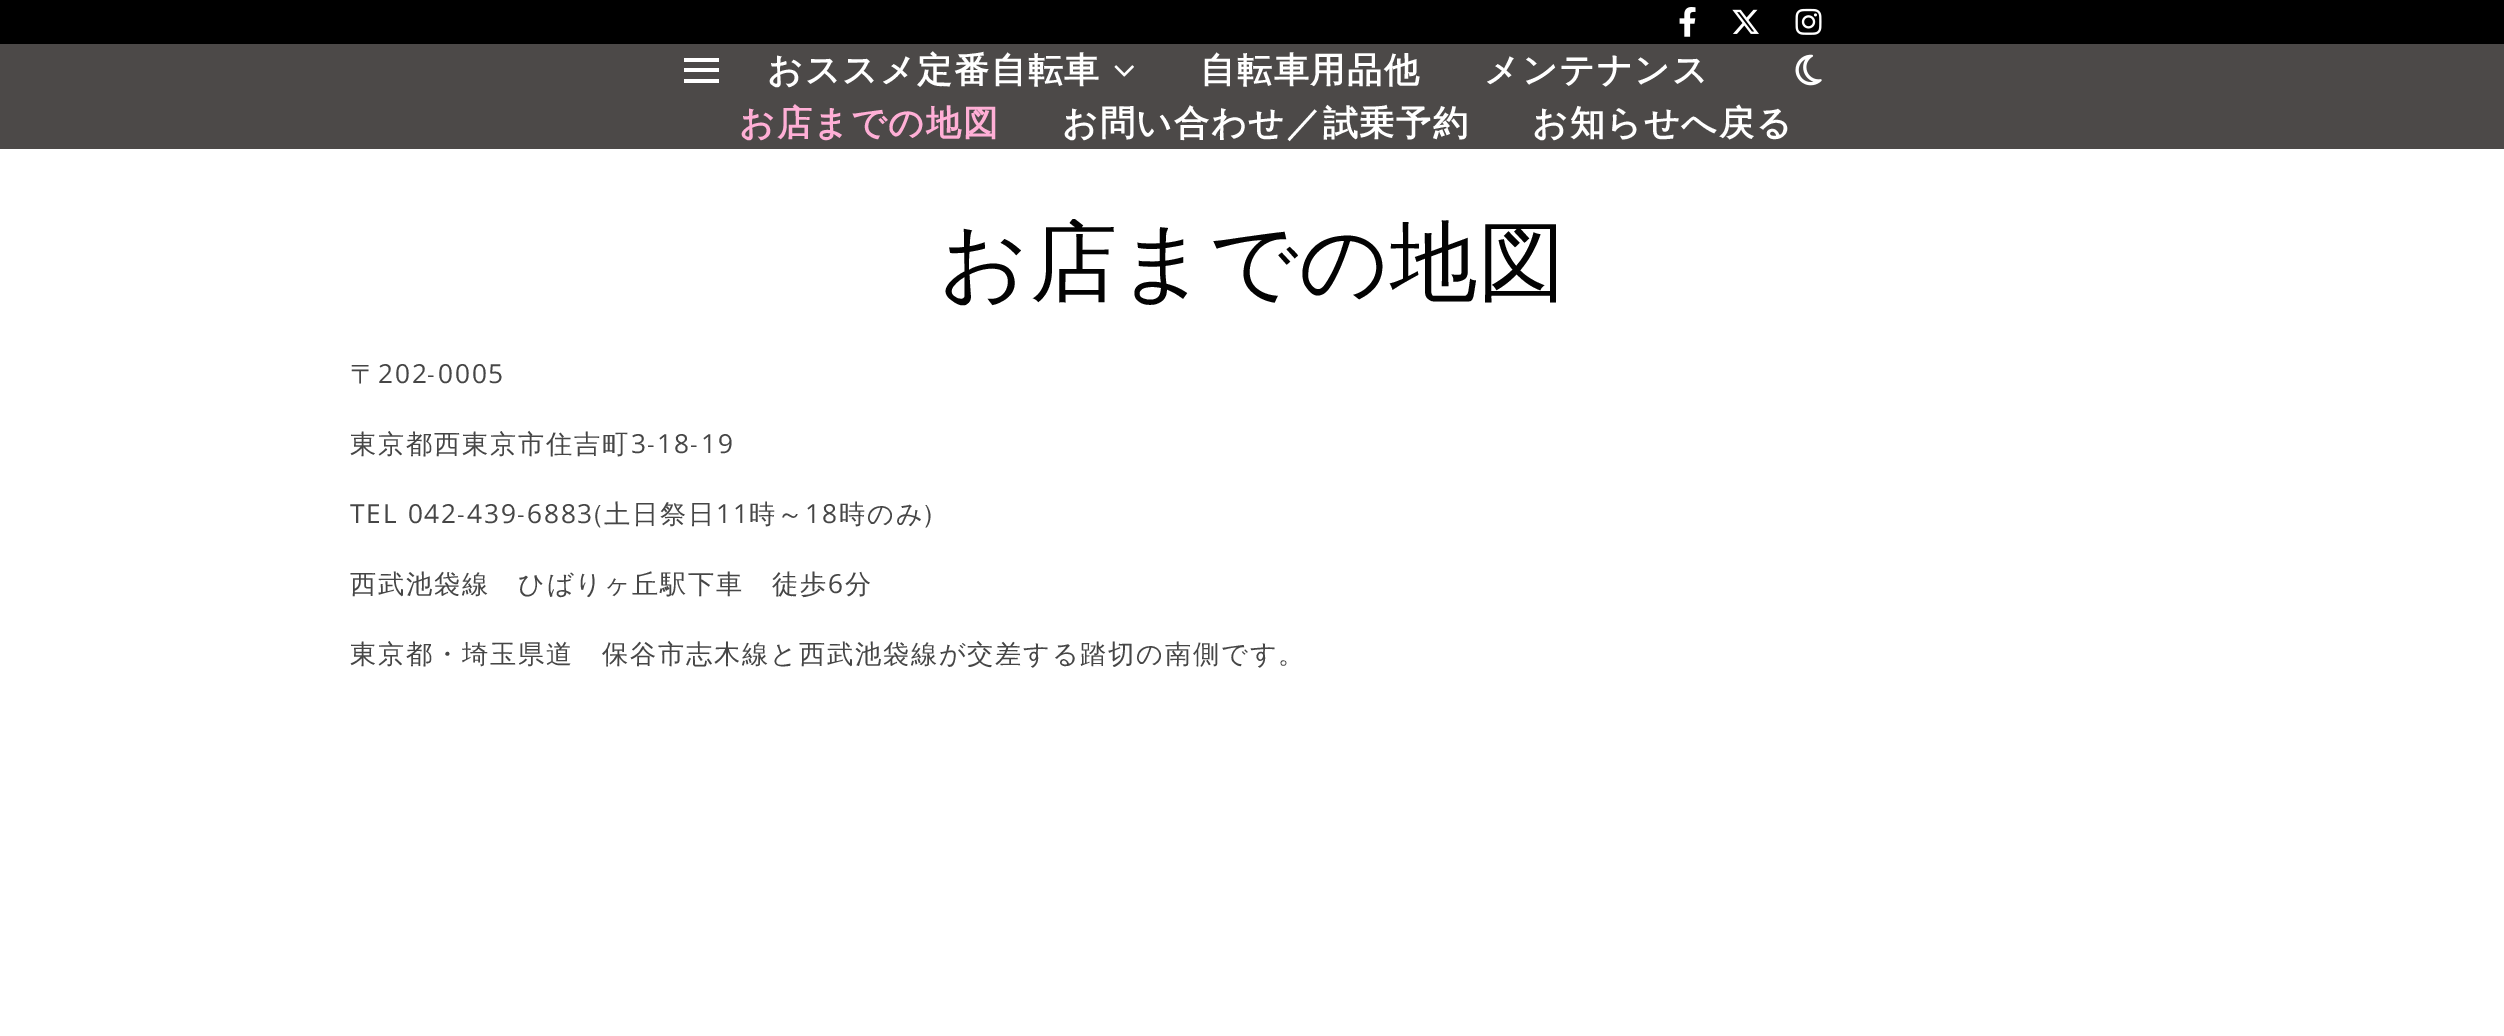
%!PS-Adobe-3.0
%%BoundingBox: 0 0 2504 1036
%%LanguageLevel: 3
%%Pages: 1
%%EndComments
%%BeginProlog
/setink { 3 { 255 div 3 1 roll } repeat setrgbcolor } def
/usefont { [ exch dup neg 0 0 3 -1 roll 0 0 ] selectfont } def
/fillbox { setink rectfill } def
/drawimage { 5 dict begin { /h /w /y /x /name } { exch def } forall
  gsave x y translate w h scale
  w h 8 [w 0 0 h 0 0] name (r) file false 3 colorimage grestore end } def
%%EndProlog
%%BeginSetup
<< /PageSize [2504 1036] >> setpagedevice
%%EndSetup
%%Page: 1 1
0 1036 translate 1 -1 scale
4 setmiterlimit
0 0 2504 1036 255 255 255 fillbox
0 0 2504 44 0 0 0 fillbox
(assets/img1.rgb) 1679 7 17 30 drawimage
(assets/img2.rgb) 1732 9 27 25 drawimage
(assets/img3.rgb) 1795 8 27 27 drawimage
0 44 2504 105 76 73 72 fillbox
684 58 35 4 255 255 255 fillbox
684 68 35 4 255 255 255 fillbox
684 79 35 4 255 255 255 fillbox
/WenQuanYiZenHei-Bold 35 usefont
767 82 moveto 1.75 0 (おススメ定番自転車) ashow
(assets/img4.rgb) 1114 65 20 12 drawimage
1200 82 moveto 1.75 0 (自転車用品他) ashow
1484 82 moveto 1.75 0 (メンテナンス) ashow
255 175 214 setink
739 135 moveto 1.75 0 (お店までの地図) ashow
255 255 255 setink
1062 135 moveto 1.75 0 (お問い合わせ／試乗予約) ashow
1532 135 moveto 1.75 0 (お知らせへ戻る) ashow
(assets/img5.rgb) 1795 54 27 32 drawimage
gsave
350 219 1804 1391 rectclip
/WenQuanYiZenHei-Medium 87.5 usefont
3 3 3 setink
939 292 moveto 1 0 (お店までの地図) ashow
grestore
/WenQuanYiZenHei-Medium 26.25 usefont
70 70 70 setink
350 383 moveto 1.75 0 (〒) ashow
/OpenSans-Regular 26.25 usefont
378 383 moveto 1.75 0 (202) ashow
/WenQuanYiZenHei-Medium 26.25 usefont
428 383 moveto 1.75 0 (-) ashow
/OpenSans-Regular 26.25 usefont
438 383 moveto 1.75 0 (0005) ashow
/WenQuanYiZenHei-Medium 26.25 usefont
350 453 moveto 1.75 0 (東京都西東京市住吉町) ashow
/OpenSans-Regular 26.25 usefont
631 453 moveto 1.75 0 (3) ashow
/WenQuanYiZenHei-Medium 26.25 usefont
648 453 moveto 1.75 0 (-) ashow
/OpenSans-Regular 26.25 usefont
657 453 moveto 1.75 0 (18) ashow
/WenQuanYiZenHei-Medium 26.25 usefont
691 453 moveto 1.75 0 (-) ashow
/OpenSans-Regular 26.25 usefont
701 453 moveto 1.75 0 (19) ashow
350 523 moveto 1 0 32 1.75 0 (TEL 042) awidthshow
/WenQuanYiZenHei-Medium 26.25 usefont
458 523 moveto 1.75 0 (-) ashow
/OpenSans-Regular 26.25 usefont
467 523 moveto 1.75 0 (439) ashow
/WenQuanYiZenHei-Medium 26.25 usefont
518 523 moveto 1.75 0 (-) ashow
/OpenSans-Regular 26.25 usefont
527 523 moveto 1.75 0 (6883) ashow
/WenQuanYiZenHei-Medium 26.25 usefont
594 523 moveto 1.75 0 (\(土日祭日) ashow
/OpenSans-Regular 26.25 usefont
716 523 moveto 1.75 0 (11) ashow
/WenQuanYiZenHei-Medium 26.25 usefont
749 523 moveto 1.75 0 (時～) ashow
/OpenSans-Regular 26.25 usefont
805 523 moveto 1.75 0 (18) ashow
/WenQuanYiZenHei-Medium 26.25 usefont
839 523 moveto 1.75 0 (時のみ\)) ashow
350 593 moveto 1.75 0 (西武池袋線　ひばりヶ丘駅下車　徒歩) ashow
/OpenSans-Regular 26.25 usefont
828 593 moveto 1.75 0 (6) ashow
/WenQuanYiZenHei-Medium 26.25 usefont
845 593 moveto 1.75 0 (分) ashow
350 663 moveto 1.75 0 (東京都・埼玉県道　保谷市志木線と西武池袋線が交差する踏切の南側です。) ashow
showpage
%%EOF
